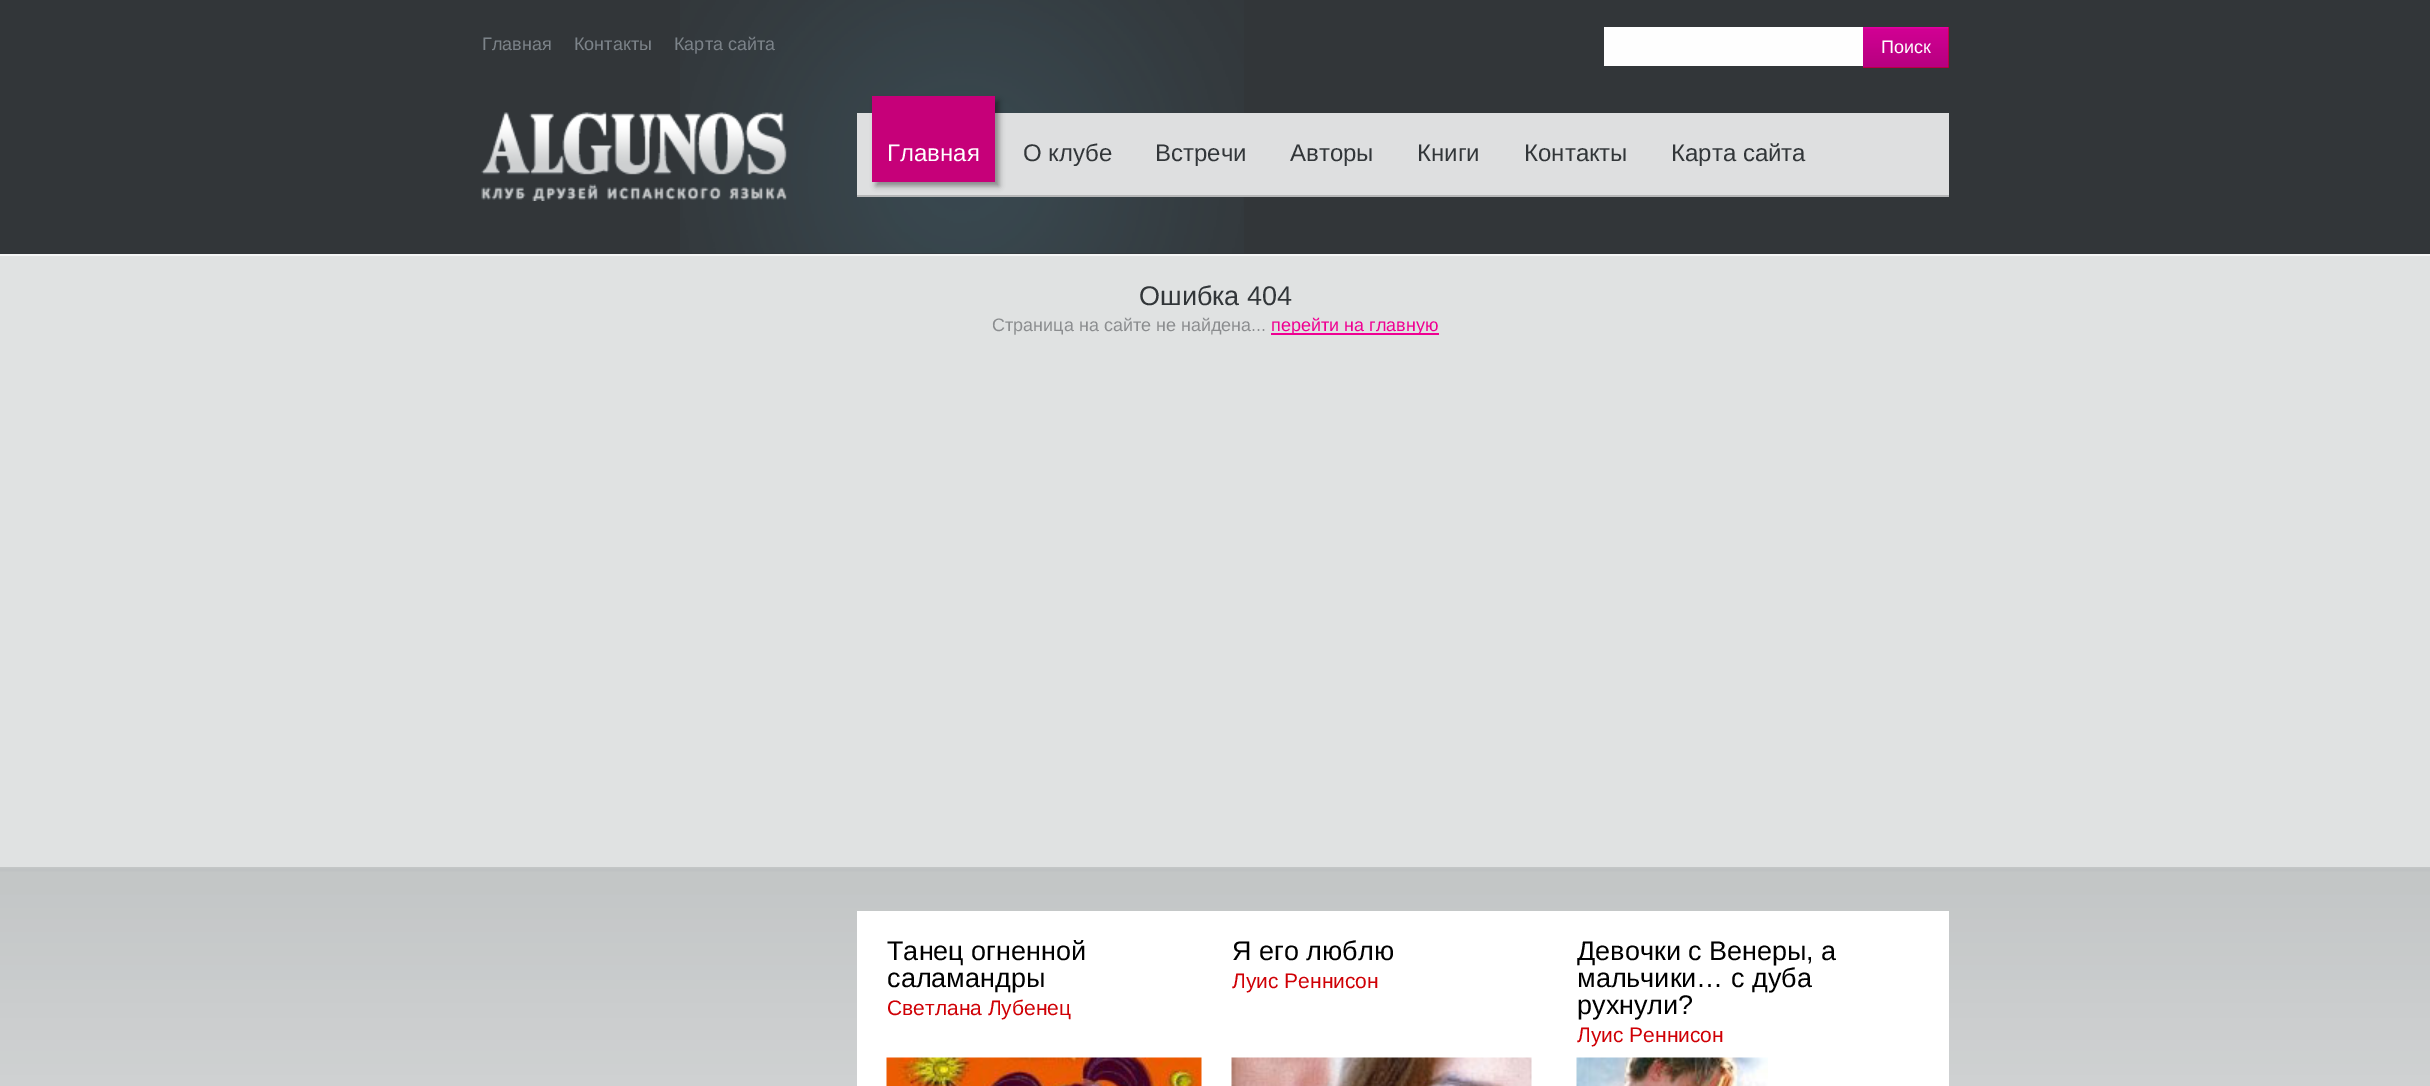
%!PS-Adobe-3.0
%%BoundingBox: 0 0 2430 1086
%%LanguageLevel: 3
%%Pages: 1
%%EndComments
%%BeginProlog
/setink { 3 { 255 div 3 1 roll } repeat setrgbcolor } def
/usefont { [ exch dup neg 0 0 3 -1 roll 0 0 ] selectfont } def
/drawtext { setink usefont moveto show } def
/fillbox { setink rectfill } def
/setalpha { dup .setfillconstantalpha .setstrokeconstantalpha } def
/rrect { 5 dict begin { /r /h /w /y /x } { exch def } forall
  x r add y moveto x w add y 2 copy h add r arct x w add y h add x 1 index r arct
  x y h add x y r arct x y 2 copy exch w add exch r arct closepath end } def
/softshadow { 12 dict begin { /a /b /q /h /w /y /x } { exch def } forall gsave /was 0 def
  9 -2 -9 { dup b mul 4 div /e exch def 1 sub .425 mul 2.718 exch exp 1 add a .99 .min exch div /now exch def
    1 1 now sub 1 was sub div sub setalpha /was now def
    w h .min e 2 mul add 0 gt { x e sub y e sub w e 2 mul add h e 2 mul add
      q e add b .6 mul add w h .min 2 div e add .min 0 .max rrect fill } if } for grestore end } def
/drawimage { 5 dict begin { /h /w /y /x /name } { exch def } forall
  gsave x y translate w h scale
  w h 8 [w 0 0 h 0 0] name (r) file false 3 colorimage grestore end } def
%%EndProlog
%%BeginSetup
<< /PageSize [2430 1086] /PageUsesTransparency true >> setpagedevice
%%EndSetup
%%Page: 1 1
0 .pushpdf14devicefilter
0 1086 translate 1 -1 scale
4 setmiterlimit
0 0 2430 1086 224 226 226 fillbox
0 0 2430 254 50 54 57 fillbox
(assets/img1.rgb) 680 0 564 254 drawimage
0 254 2430 2 244 245 245 fillbox
(Главная) 482 50 /LiberationSans-Regular 18 124 131 137 drawtext
(Контакты) 574 50 /LiberationSans-Regular 18 124 131 137 drawtext
(Карта сайта) 674 50 /LiberationSans-Regular 18 124 131 137 drawtext
1604 27 259 39 254 254 254 fillbox
1863 27 86 41 184 0 4 fillbox
(assets/img2.rgb) 1863 27 86 41 drawimage
(Поиск) 1881 53 /LiberationSans-Regular 18 255 255 255 drawtext
(assets/img3.rgb) 481 112 306 89 drawimage
857 113 1092 82 222 223 224 fillbox
857 195 1092 2 182 183 184 fillbox
0 0 0 setink
876 101 123 85 0 3 0.4 softshadow
872 96 123 86 198 0 121 fillbox
(Главная) 887 161 /LiberationSans-Regular 24 255 255 255 drawtext
(О клубе) 1023 161 /LiberationSans-Regular 24 50 54 57 drawtext
(Встречи) 1155 161 /LiberationSans-Regular 24 50 54 57 drawtext
(Авторы) 1290 161 /LiberationSans-Regular 24 50 54 57 drawtext
(Книги) 1417 161 /LiberationSans-Regular 24 50 54 57 drawtext
(Контакты) 1524 161 /LiberationSans-Regular 24 50 54 57 drawtext
(Карта сайта) 1671 161 /LiberationSans-Regular 24 50 54 57 drawtext
(Ошибка 404) 1139 305 /LiberationSans-Regular 27 50 54 57 drawtext
(Страница на сайте не найдена...) 992 331 /LiberationSans-Regular 18 139 141 143 drawtext
1271 333 168 2 239 0 146 fillbox
(перейти на главную) 1271 331 /LiberationSans-Regular 18 239 0 146 drawtext
(assets/img4.rgb) 0 867 2430 219 drawimage
857 911 1092 175 255 255 255 fillbox
(Танец огненной) 887 960 /LiberationSans-Regular 27 0 0 0 drawtext
(саламандры) 887 987 /LiberationSans-Regular 27 0 0 0 drawtext
(Светлана Лубенец) 887 1015 /LiberationSans-Regular 21 207 0 5 drawtext
(assets/img5.rgb) 886 1057 316 29 drawimage
(Я его люблю) 1232 960 /LiberationSans-Regular 27 0 0 0 drawtext
(Луис Реннисон) 1232 988 /LiberationSans-Regular 21 207 0 5 drawtext
(assets/img6.rgb) 1231 1057 301 29 drawimage
(Девочки с Венеры, а) 1577 960 /LiberationSans-Regular 27 0 0 0 drawtext
(мальчики… с дуба) 1577 987 /LiberationSans-Regular 27 0 0 0 drawtext
(рухнули?) 1577 1014 /LiberationSans-Regular 27 0 0 0 drawtext
(Луис Реннисон) 1577 1042 /LiberationSans-Regular 21 207 0 5 drawtext
(assets/img7.rgb) 1576 1057 192 29 drawimage
.poppdf14devicefilter showpage
%%EOF
